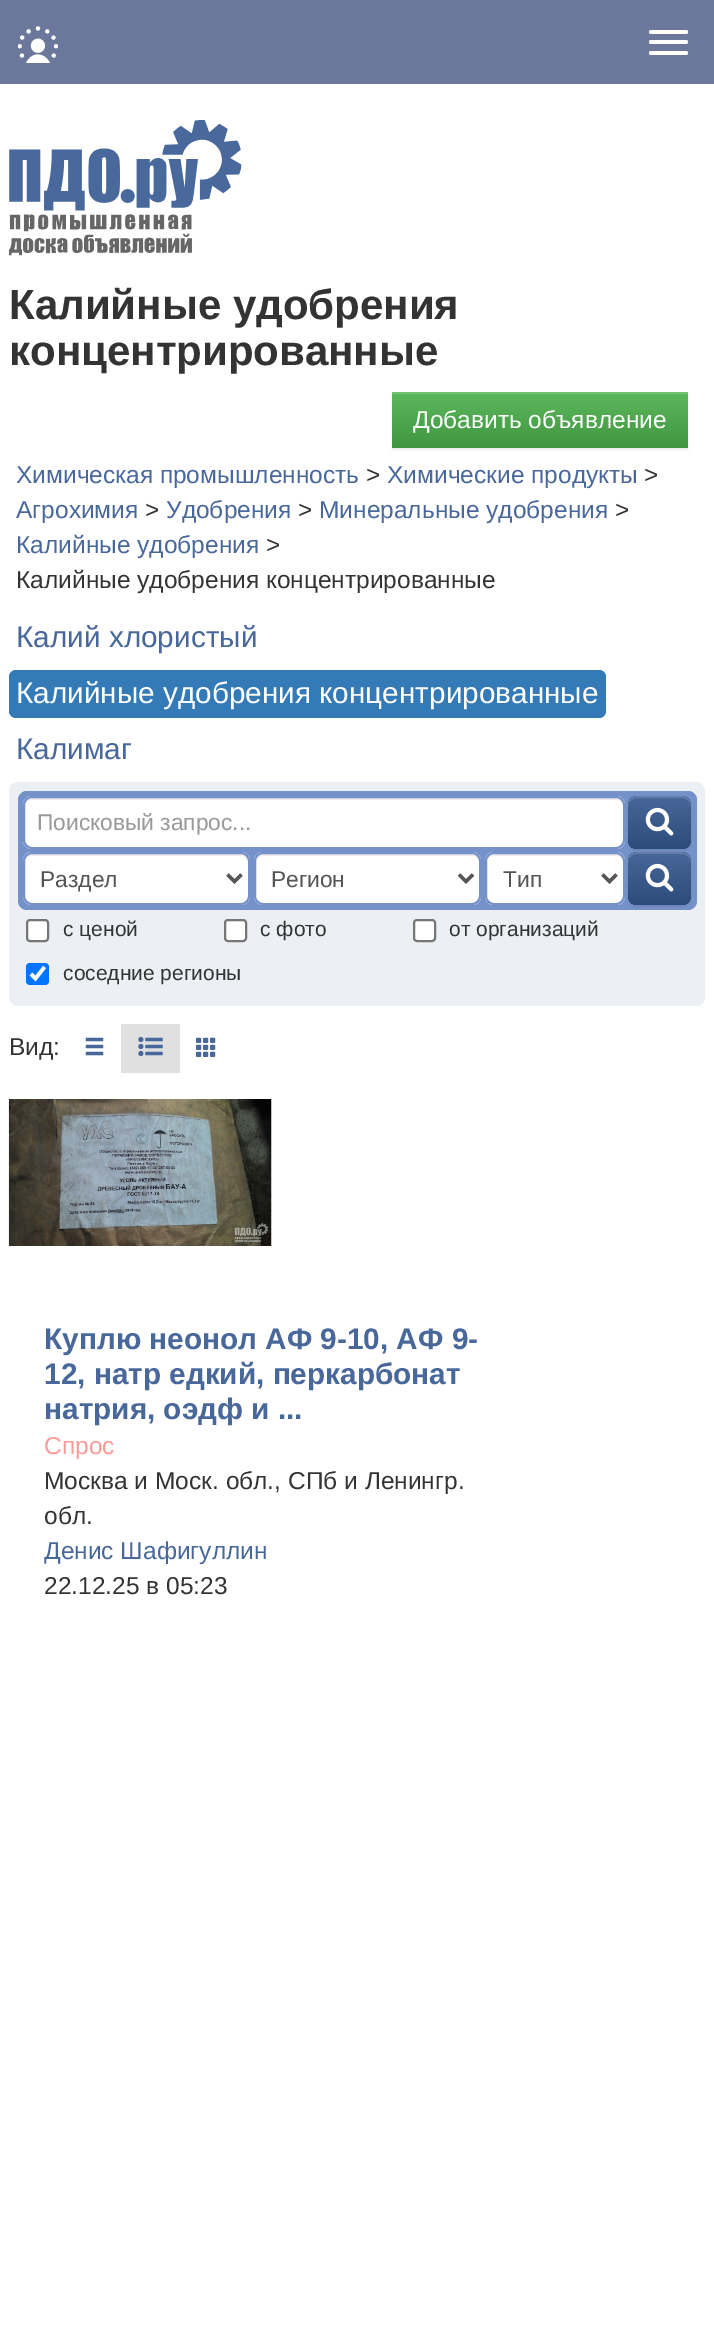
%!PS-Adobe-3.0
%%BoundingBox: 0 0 714 2336
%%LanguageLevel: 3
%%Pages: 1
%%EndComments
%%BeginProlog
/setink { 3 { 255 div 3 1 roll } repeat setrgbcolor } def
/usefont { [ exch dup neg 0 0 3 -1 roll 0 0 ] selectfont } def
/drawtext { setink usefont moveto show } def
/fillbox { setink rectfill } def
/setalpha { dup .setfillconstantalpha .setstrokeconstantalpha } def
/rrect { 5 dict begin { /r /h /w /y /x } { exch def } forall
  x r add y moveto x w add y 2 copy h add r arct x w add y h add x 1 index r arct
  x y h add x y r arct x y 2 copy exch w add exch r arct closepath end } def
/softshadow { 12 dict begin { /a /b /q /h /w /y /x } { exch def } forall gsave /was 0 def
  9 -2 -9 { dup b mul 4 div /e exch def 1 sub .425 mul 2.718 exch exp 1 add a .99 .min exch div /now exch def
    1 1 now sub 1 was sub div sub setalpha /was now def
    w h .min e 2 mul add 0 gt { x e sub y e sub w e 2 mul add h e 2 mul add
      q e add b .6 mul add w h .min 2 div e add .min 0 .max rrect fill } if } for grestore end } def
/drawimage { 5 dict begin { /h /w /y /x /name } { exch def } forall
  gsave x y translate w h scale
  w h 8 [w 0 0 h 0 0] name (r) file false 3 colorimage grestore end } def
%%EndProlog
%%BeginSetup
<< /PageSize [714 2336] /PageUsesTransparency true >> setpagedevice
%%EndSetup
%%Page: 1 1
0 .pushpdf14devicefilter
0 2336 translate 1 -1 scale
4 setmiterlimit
0 0 714 2336 255 255 255 fillbox
0 0 714 84 107 120 156 fillbox
(assets/img1.rgb) 18 26 40 37 drawimage
255 255 255 setink
649 30 39 4 2 rrect fill
649 40 39 4 2 rrect fill
649 51 39 4 2 rrect fill
(assets/img2.rgb) 9 120 233 136 drawimage
(Калийные удобрения) 9 319 /LiberationSans-Bold 42 51 51 51 drawtext
(концентрированные) 9 365 /LiberationSans-Bold 42 51 51 51 drawtext
0 0 0 setink
392 394 296 56 0 1 0.07 softshadow
gsave 392 394 moveto 688 394 lineto 688 448 lineto 392 448 lineto closepath clip newpath
<< /ShadingType 2 /ColorSpace /DeviceRGB /Coords [540 392 540 448] /Extend [true true] /Function << /FunctionType 2 /Domain [0 1] /C0 [0.361 0.722 0.361] /C1 [0.255 0.588 0.255] /N 1 >> >> shfill grestore
392 392 296 2 116 194 116 fillbox
(Добавить объявление) 413 428 /LiberationSans-Regular 24.5 255 255 255 drawtext
(Химическая промышленность) 16 483 /LiberationSans-Regular 24.5 72 103 154 drawtext
(>) 366 483 /LiberationSans-Regular 24.5 51 51 51 drawtext
(Химические продукты) 387 483 /LiberationSans-Regular 24.5 72 103 154 drawtext
(>) 644 483 /LiberationSans-Regular 24.5 51 51 51 drawtext
(Агрохимия) 16 518 /LiberationSans-Regular 24.5 72 103 154 drawtext
(>) 145 518 /LiberationSans-Regular 24.5 51 51 51 drawtext
(Удобрения) 166 518 /LiberationSans-Regular 24.5 72 103 154 drawtext
(>) 298 518 /LiberationSans-Regular 24.5 51 51 51 drawtext
(Минеральные удобрения) 319 518 /LiberationSans-Regular 24.5 72 103 154 drawtext
(>) 615 518 /LiberationSans-Regular 24.5 51 51 51 drawtext
(Калийные удобрения) 16 553 /LiberationSans-Regular 24.5 72 103 154 drawtext
(>) 266 553 /LiberationSans-Regular 24.5 51 51 51 drawtext
(Калийные удобрения концентрированные) 16 588 /LiberationSans-Regular 24.5 51 51 51 drawtext
(Калий хлористый) 16 647 /LiberationSans-Regular 29.75 72 103 154 drawtext
51 122 183 setink
9 670 597 48 7 rrect fill
(Калийные удобрения концентрированные) 16 703 /LiberationSans-Regular 29.75 255 255 255 drawtext
(Калимаг) 16 759 /LiberationSans-Regular 29.75 72 103 154 drawtext
236 240 245 setink
9 782 696 224 9 rrect fill
116 146 201 setink
18 791 679 119 9 rrect fill
0 0 0 setink
628 798 63 53 9 1 0.07 softshadow
255 255 255 setink
23 796 602 53 9 rrect fill
236 236 236 setink
32 800 moveto 616 800 lineto 620 800 623 803 623 807 curveto 623 805 lineto 623 801 620 798 616 798 curveto 32 798 lineto 29 798 26 800 25 803 curveto 27 801 29 800 32 800 curveto closepath fill
116 146 201 setink
2 setlinewidth
24 797 600 51 8 rrect stroke
(Поисковый запрос...) 37 830 /LiberationSans-Regular 22.75 153 153 153 drawtext
gsave 628 796 63 53 9 rrect clip newpath
<< /ShadingType 2 /ColorSpace /DeviceRGB /Coords [660 796 660 849] /Extend [true true] /Function << /FunctionType 2 /Domain [0 1] /C0 [0.282 0.404 0.604] /C1 [0.169 0.298 0.482] /N 1 >> >> shfill grestore
0.15 setalpha
255 255 255 setink
637 798 moveto 682 798 lineto 687 798 691 802 691 807 curveto 691 796 684 796 674 796 curveto 644 796 lineto 635 796 628 796 628 807 curveto 628 802 632 798 637 798 curveto closepath fill
1 setalpha
(assets/img3.rgb) 645 807 29 29 drawimage
23 852 227 53 9 rrect fill
236 236 236 setink
32 856 moveto 242 856 lineto 250 856 248 870 248 875 curveto 248 900 lineto 249 899 249 897 249 896 curveto 249 861 lineto 249 857 246 854 242 854 curveto 32 854 lineto 29 854 26 856 25 859 curveto 27 857 29 856 32 856 curveto closepath fill
116 146 201 setink
24 853 225 51 8 rrect stroke
85 85 85 setink
3.5 setlinewidth
227.5 874.5 moveto 234.5 881.5 lineto 241.5 874.5 lineto stroke
(Раздел) 40 887 /LiberationSans-Regular 22.75 85 85 85 drawtext
255 255 255 setink
254 852 227 53 9 rrect fill
236 236 236 setink
262 856 moveto 472 856 lineto 476 856 480 859 480 863 curveto 480 861 lineto 480 857 477 854 473 854 curveto 263 854 lineto 259 854 256 857 256 861 curveto 256 863 lineto 256 859 259 856 262 856 curveto closepath fill
116 146 201 setink
2 setlinewidth
255 853 225 51 8 rrect stroke
85 85 85 setink
3.5 setlinewidth
459 874.5 moveto 466 881.5 lineto 473 874.5 lineto stroke
(Регион) 271 887 /LiberationSans-Regular 22.75 85 85 85 drawtext
0 0 0 setink
628 854 63 53 9 1 0.07 softshadow
255 255 255 setink
485 852 140 53 9 rrect fill
236 236 236 setink
494 856 moveto 616 856 lineto 620 856 623 859 623 863 curveto 623 861 lineto 623 857 620 854 616 854 curveto 494 854 lineto 491 854 488 856 487 859 curveto 489 857 491 856 494 856 curveto closepath fill
116 146 201 setink
2 setlinewidth
486 853 138 51 8 rrect stroke
85 85 85 setink
3.5 setlinewidth
602.5 874.5 moveto 609.5 881.5 lineto 616.5 874.5 lineto stroke
(Тип) 503 887 /LiberationSans-Regular 22.75 85 85 85 drawtext
gsave 628 852 63 53 9 rrect clip newpath
<< /ShadingType 2 /ColorSpace /DeviceRGB /Coords [660 852 660 905] /Extend [true true] /Function << /FunctionType 2 /Domain [0 1] /C0 [0.282 0.404 0.604] /C1 [0.169 0.298 0.482] /N 1 >> >> shfill grestore
0.15 setalpha
255 255 255 setink
637 854 moveto 682 854 lineto 687 854 691 858 691 863 curveto 691 852 684 852 674 852 curveto 644 852 lineto 635 852 628 852 628 863 curveto 628 858 632 854 637 854 curveto closepath fill
1 setalpha
(assets/img3.rgb) 645 863 29 29 drawimage
27 920 21 21 3 rrect gsave fill grestore
118 118 118 setink
2 setlinewidth
stroke
(с ценой) 63 936 /LiberationSans-Regular 21 51 51 51 drawtext
255 255 255 setink
225 920 21 21 3 rrect gsave fill grestore
118 118 118 setink
stroke
(с фото) 260 936 /LiberationSans-Regular 21 51 51 51 drawtext
255 255 255 setink
414 920 21 21 3 rrect gsave fill grestore
118 118 118 setink
stroke
(от организаций) 449 936 /LiberationSans-Regular 21 51 51 51 drawtext
0 117 255 setink
26 963 23 22 4 rrect fill
255 255 255 setink
3.6 setlinewidth
31 974 moveto 35.5 978.5 lineto 44.5 967 lineto stroke
(соседние регионы) 63 980 /LiberationSans-Regular 21 51 51 51 drawtext
(Вид:) 9 1055 /LiberationSans-Regular 24.5 51 51 51 drawtext
(assets/img4.rgb) 85 1037 19 19 drawimage
121 1024 59 49 224 224 224 fillbox
(assets/img5.rgb) 138 1036 25 21 drawimage
(assets/img6.rgb) 196 1037 20 20 drawimage
(assets/img7.rgb) 8 1099 264 147 drawimage
(Куплю неонол АФ 9-10, АФ 9-) 44 1349 /LiberationSans-Bold 29.75 72 103 154 drawtext
(12, натр едкий, перкарбонат) 44 1384 /LiberationSans-Bold 29.75 72 103 154 drawtext
(натрия, оэдф и ...) 44 1419 /LiberationSans-Bold 29.75 72 103 154 drawtext
(Спрос) 44 1454 /LiberationSans-Regular 24.5 255 153 153 drawtext
(Москва и Моск. обл., СПб и Ленингр.) 44 1489 /LiberationSans-Regular 24.5 51 51 51 drawtext
(обл.) 44 1524 /LiberationSans-Regular 24.5 51 51 51 drawtext
(Денис Шафигуллин) 44 1559 /LiberationSans-Regular 24.5 72 103 154 drawtext
(22.12.25 в 05:23) 44 1594 /LiberationSans-Regular 24.5 51 51 51 drawtext
.poppdf14devicefilter showpage
%%EOF
